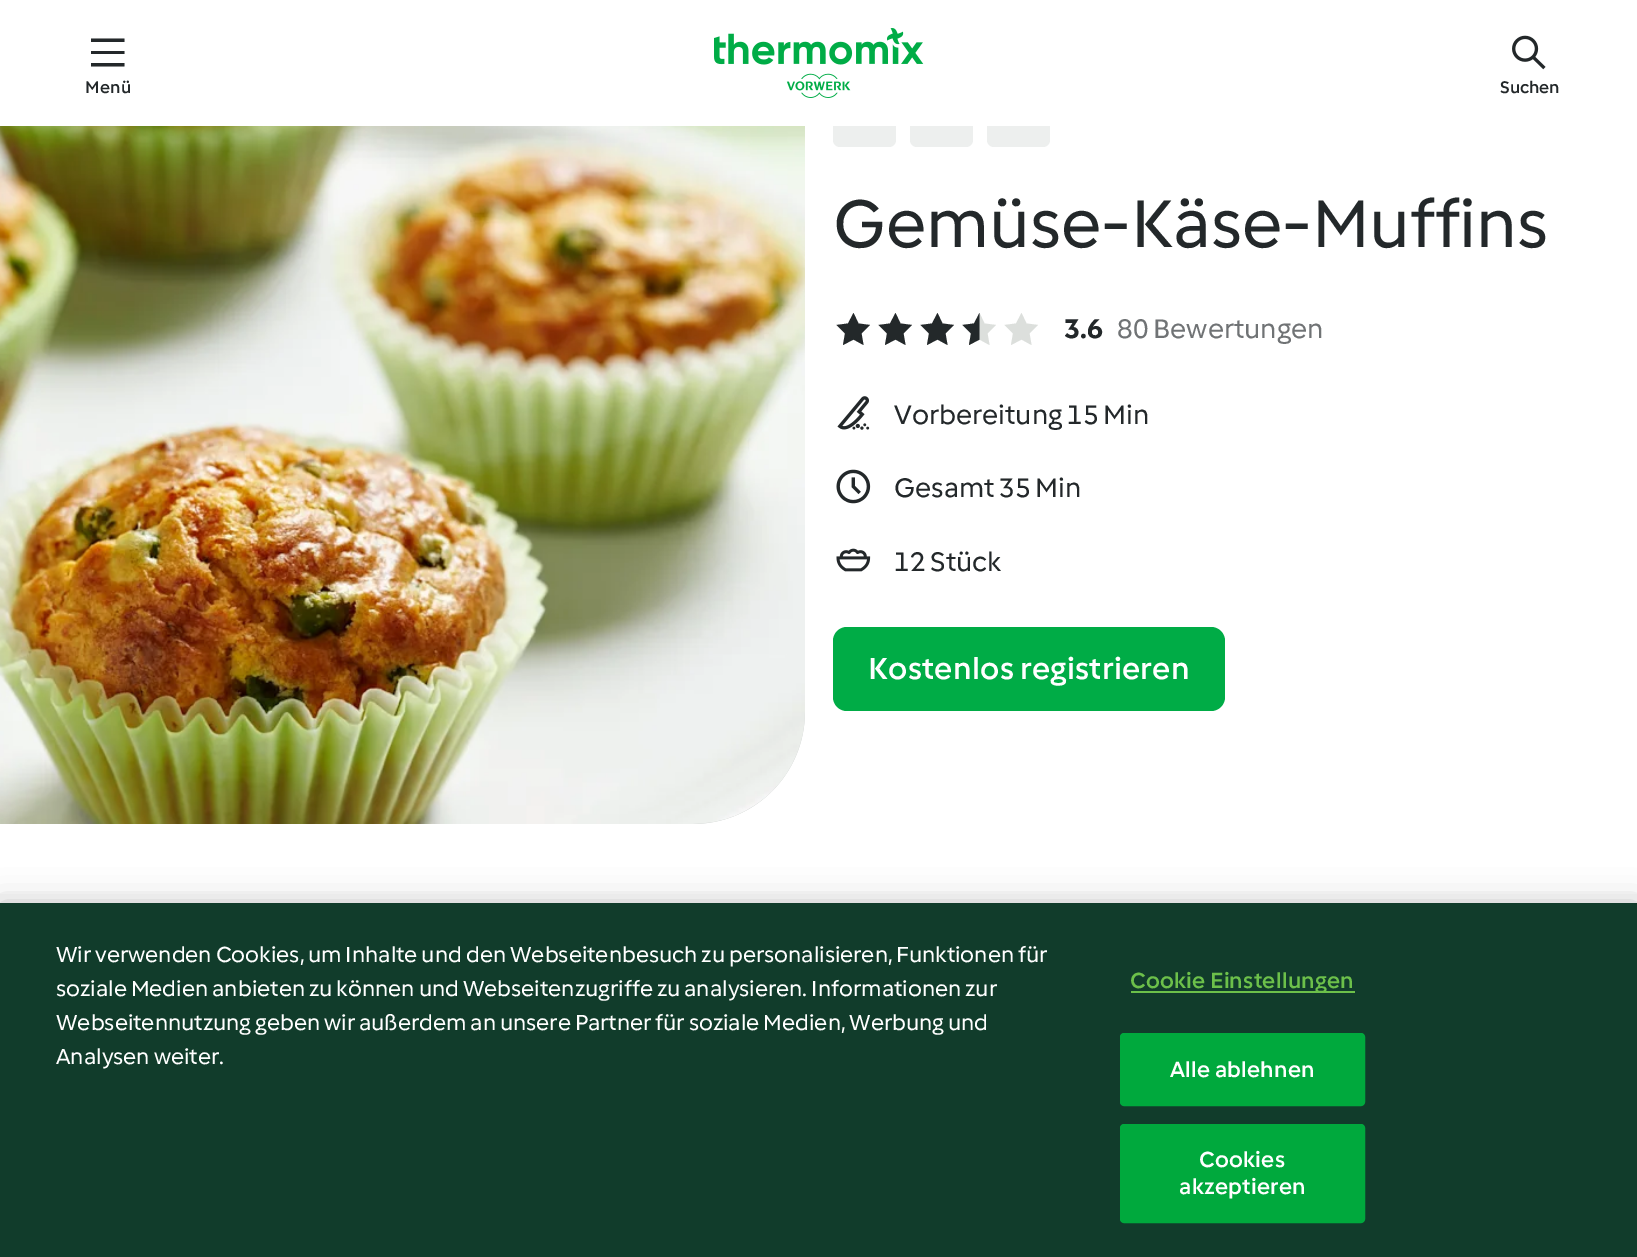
%!PS-Adobe-3.0
%%BoundingBox: 0 0 1637 1257
%%LanguageLevel: 3
%%Pages: 1
%%EndComments
%%BeginProlog
/setink { 3 { 255 div 3 1 roll } repeat setrgbcolor } def
/usefont { [ exch dup neg 0 0 3 -1 roll 0 0 ] selectfont } def
/drawtext { setink usefont moveto show } def
/fillbox { setink rectfill } def
/setalpha { dup .setfillconstantalpha .setstrokeconstantalpha } def
/rrect { 5 dict begin { /r /h /w /y /x } { exch def } forall
  x r add y moveto x w add y 2 copy h add r arct x w add y h add x 1 index r arct
  x y h add x y r arct x y 2 copy exch w add exch r arct closepath end } def
/softshadow { 12 dict begin { /a /b /q /h /w /y /x } { exch def } forall gsave /was 0 def
  9 -2 -9 { dup b mul 4 div /e exch def 1 sub .425 mul 2.718 exch exp 1 add a .99 .min exch div /now exch def
    1 1 now sub 1 was sub div sub setalpha /was now def
    w h .min e 2 mul add 0 gt { x e sub y e sub w e 2 mul add h e 2 mul add
      q e add b .6 mul add w h .min 2 div e add .min 0 .max rrect fill } if } for grestore end } def
/drawimage { 5 dict begin { /h /w /y /x /name } { exch def } forall
  gsave x y translate w h scale
  w h 8 [w 0 0 h 0 0] name (r) file false 3 colorimage grestore end } def
%%EndProlog
%%BeginSetup
<< /PageSize [1637 1257] /PageUsesTransparency true >> setpagedevice
%%EndSetup
%%Page: 1 1
0 .pushpdf14devicefilter
0 1257 translate 1 -1 scale
4 setmiterlimit
0 0 1637 1257 251 251 251 fillbox
0 126 1637 768 255 255 255 fillbox
gsave 0 -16 moveto 805 -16 lineto 805 712 lineto 805 774 755 824 693 824 curveto 0 824 lineto closepath clip newpath
<< /ShadingType 2 /ColorSpace /DeviceRGB /Coords [-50 341 855 468] /Extend [true true] /Function << /FunctionType 3 /Domain [0 1] /Functions [<< /FunctionType 2 /Domain [0 1] /C0 [0.875 0.886 0.878] /C1 [0.875 0.886 0.878] /N 1 >> << /FunctionType 2 /Domain [0 1] /C0 [0.875 0.886 0.878] /C1 [0.839 0.859 0.847] /N 1 >> << /FunctionType 2 /Domain [0 1] /C0 [0.839 0.859 0.847] /C1 [0.894 0.906 0.898] /N 1 >> << /FunctionType 2 /Domain [0 1] /C0 [0.894 0.906 0.898] /C1 [0.875 0.886 0.878] /N 1 >> << /FunctionType 2 /Domain [0 1] /C0 [0.875 0.886 0.878] /C1 [0.875 0.886 0.878] /N 1 >>] /Bounds [0.19 0.35 0.66 0.79] /Encode [0 1 0 1 0 1 0 1 0 1] >> >> shfill grestore
237 239 238 setink
833 105 63 42 7 rrect fill
910 105 63 42 7 rrect fill
987 105 63 42 7 rrect fill
0 0 1637 126 255 255 255 fillbox
35 40 42 setink
91 38.5 moveto 124.5 38.5 lineto 124.5 42 lineto 91 42 lineto closepath 91 51 moveto 124.5 51 lineto 124.5 54 lineto 91 54 lineto closepath 91 63 moveto 124.5 63 lineto 124.5 66.5 lineto 91 66.5 lineto closepath fill
/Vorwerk-Medium 17.5 usefont
85 93 moveto 0.35 0 (Menü) ashow
(assets/img1.rgb) 714 28 210 70 drawimage
(assets/img2.rgb) 1512 35 34 35 drawimage
(Suchen) 1500 93 /Vorwerk-Medium 17.5 35 40 42 drawtext
(assets/img3.rgb) 0 126 805 698 drawimage
(Gemüse-Käse-Muffins) 833 247 /Vorwerk-Regular 70 35 40 42 drawtext
853.5 313 moveto 848 323.5 lineto 836.5 325 lineto 845 333.5 lineto 843 345 lineto 853.5 339.5 lineto 863.5 345 lineto 861.5 333.5 lineto 870 325 lineto 858.5 323.5 lineto closepath fill
895.5 313 moveto 890 323.5 lineto 878.5 325 lineto 887 333.5 lineto 885 345 lineto 895.5 339.5 lineto 905.5 345 lineto 903.5 333.5 lineto 912 325 lineto 900.5 323.5 lineto closepath fill
937.5 313 moveto 932 323.5 lineto 920.5 325 lineto 929 333.5 lineto 927 345 lineto 937.5 339.5 lineto 947.5 345 lineto 945.5 333.5 lineto 954 325 lineto 942.5 323.5 lineto closepath fill
220 223 220 setink
979.5 313 moveto 974 323.5 lineto 962.5 325 lineto 971 333.5 lineto 969 345 lineto 979.5 339.5 lineto 989.5 345 lineto 987.5 333.5 lineto 996 325 lineto 984.5 323.5 lineto closepath fill
35 40 42 setink
979.5 313 moveto 974 323.5 lineto 962.5 325 lineto 971 333.5 lineto 969 345 lineto 979.5 339.5 lineto closepath fill
220 223 220 setink
1021.5 313 moveto 1016 323.5 lineto 1004.5 325 lineto 1013 333.5 lineto 1011 345 lineto 1021.5 339.5 lineto 1031.5 345 lineto 1029.5 333.5 lineto 1038 325 lineto 1026.5 323.5 lineto closepath fill
(3.6) 1064 338 /Vorwerk-Bold 28 35 40 42 drawtext
(80 Bewertungen) 1117 338 /Vorwerk-Regular 28 112 115 117 drawtext
(assets/img4.rgb) 837 396 33 34 drawimage
(Vorbereitung 15 Min) 894 424 /Vorwerk-Regular 28 35 40 42 drawtext
(assets/img5.rgb) 836 469 35 35 drawimage
(Gesamt 35 Min) 894 497 /Vorwerk-Regular 28 35 40 42 drawtext
(assets/img6.rgb) 836 548 35 24 drawimage
(12 Stück) 894 571 /Vorwerk-Regular 28 35 40 42 drawtext
0 172 70 setink
833 627 392 84 14 rrect fill
/Vorwerk-Medium 31.5 usefont
255 255 255 setink
868 679 moveto 0.35 0 (Kostenlos registrieren) ashow
0 0 0 setink
0 903 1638 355 0 16 0.2 softshadow
0 903 1637 354 17 60 43 fillbox
(Wir verwenden Cookies, um Inhalte und den Webseitenbesuch zu personalisieren, Funktionen für) 56 962 /Vorwerk-Regular 22.75 255 255 255 drawtext
(soziale Medien anbieten zu können und Webseitenzugriffe zu analysieren. Informationen zur) 56 996 /Vorwerk-Regular 22.75 255 255 255 drawtext
(Webseitennutzung geben wir außerdem an unsere Partner für soziale Medien, Werbung und) 56 1030 /Vorwerk-Regular 22.75 255 255 255 drawtext
(Analysen weiter.) 56 1064 /Vorwerk-Regular 22.75 255 255 255 drawtext
1131 991 224 2 108 192 74 fillbox
/Vorwerk-Medium 22.75 usefont
1130 988 moveto 0.25 0 (Cookie Einstellungen) ashow
0 169 61 setink
1121 1034 243 71 3 rrect gsave fill grestore
2 setlinewidth
stroke
255 255 255 setink
1170 1077 moveto 0.25 0 (Alle ablehnen) ashow
0 169 61 setink
1121 1125 243 97 3 rrect gsave fill grestore
stroke
255 255 255 setink
1199 1167 moveto 0.25 0 (Cookies) ashow
1179 1194 moveto 0.25 0 (akzeptieren) ashow
.poppdf14devicefilter showpage
%%EOF
